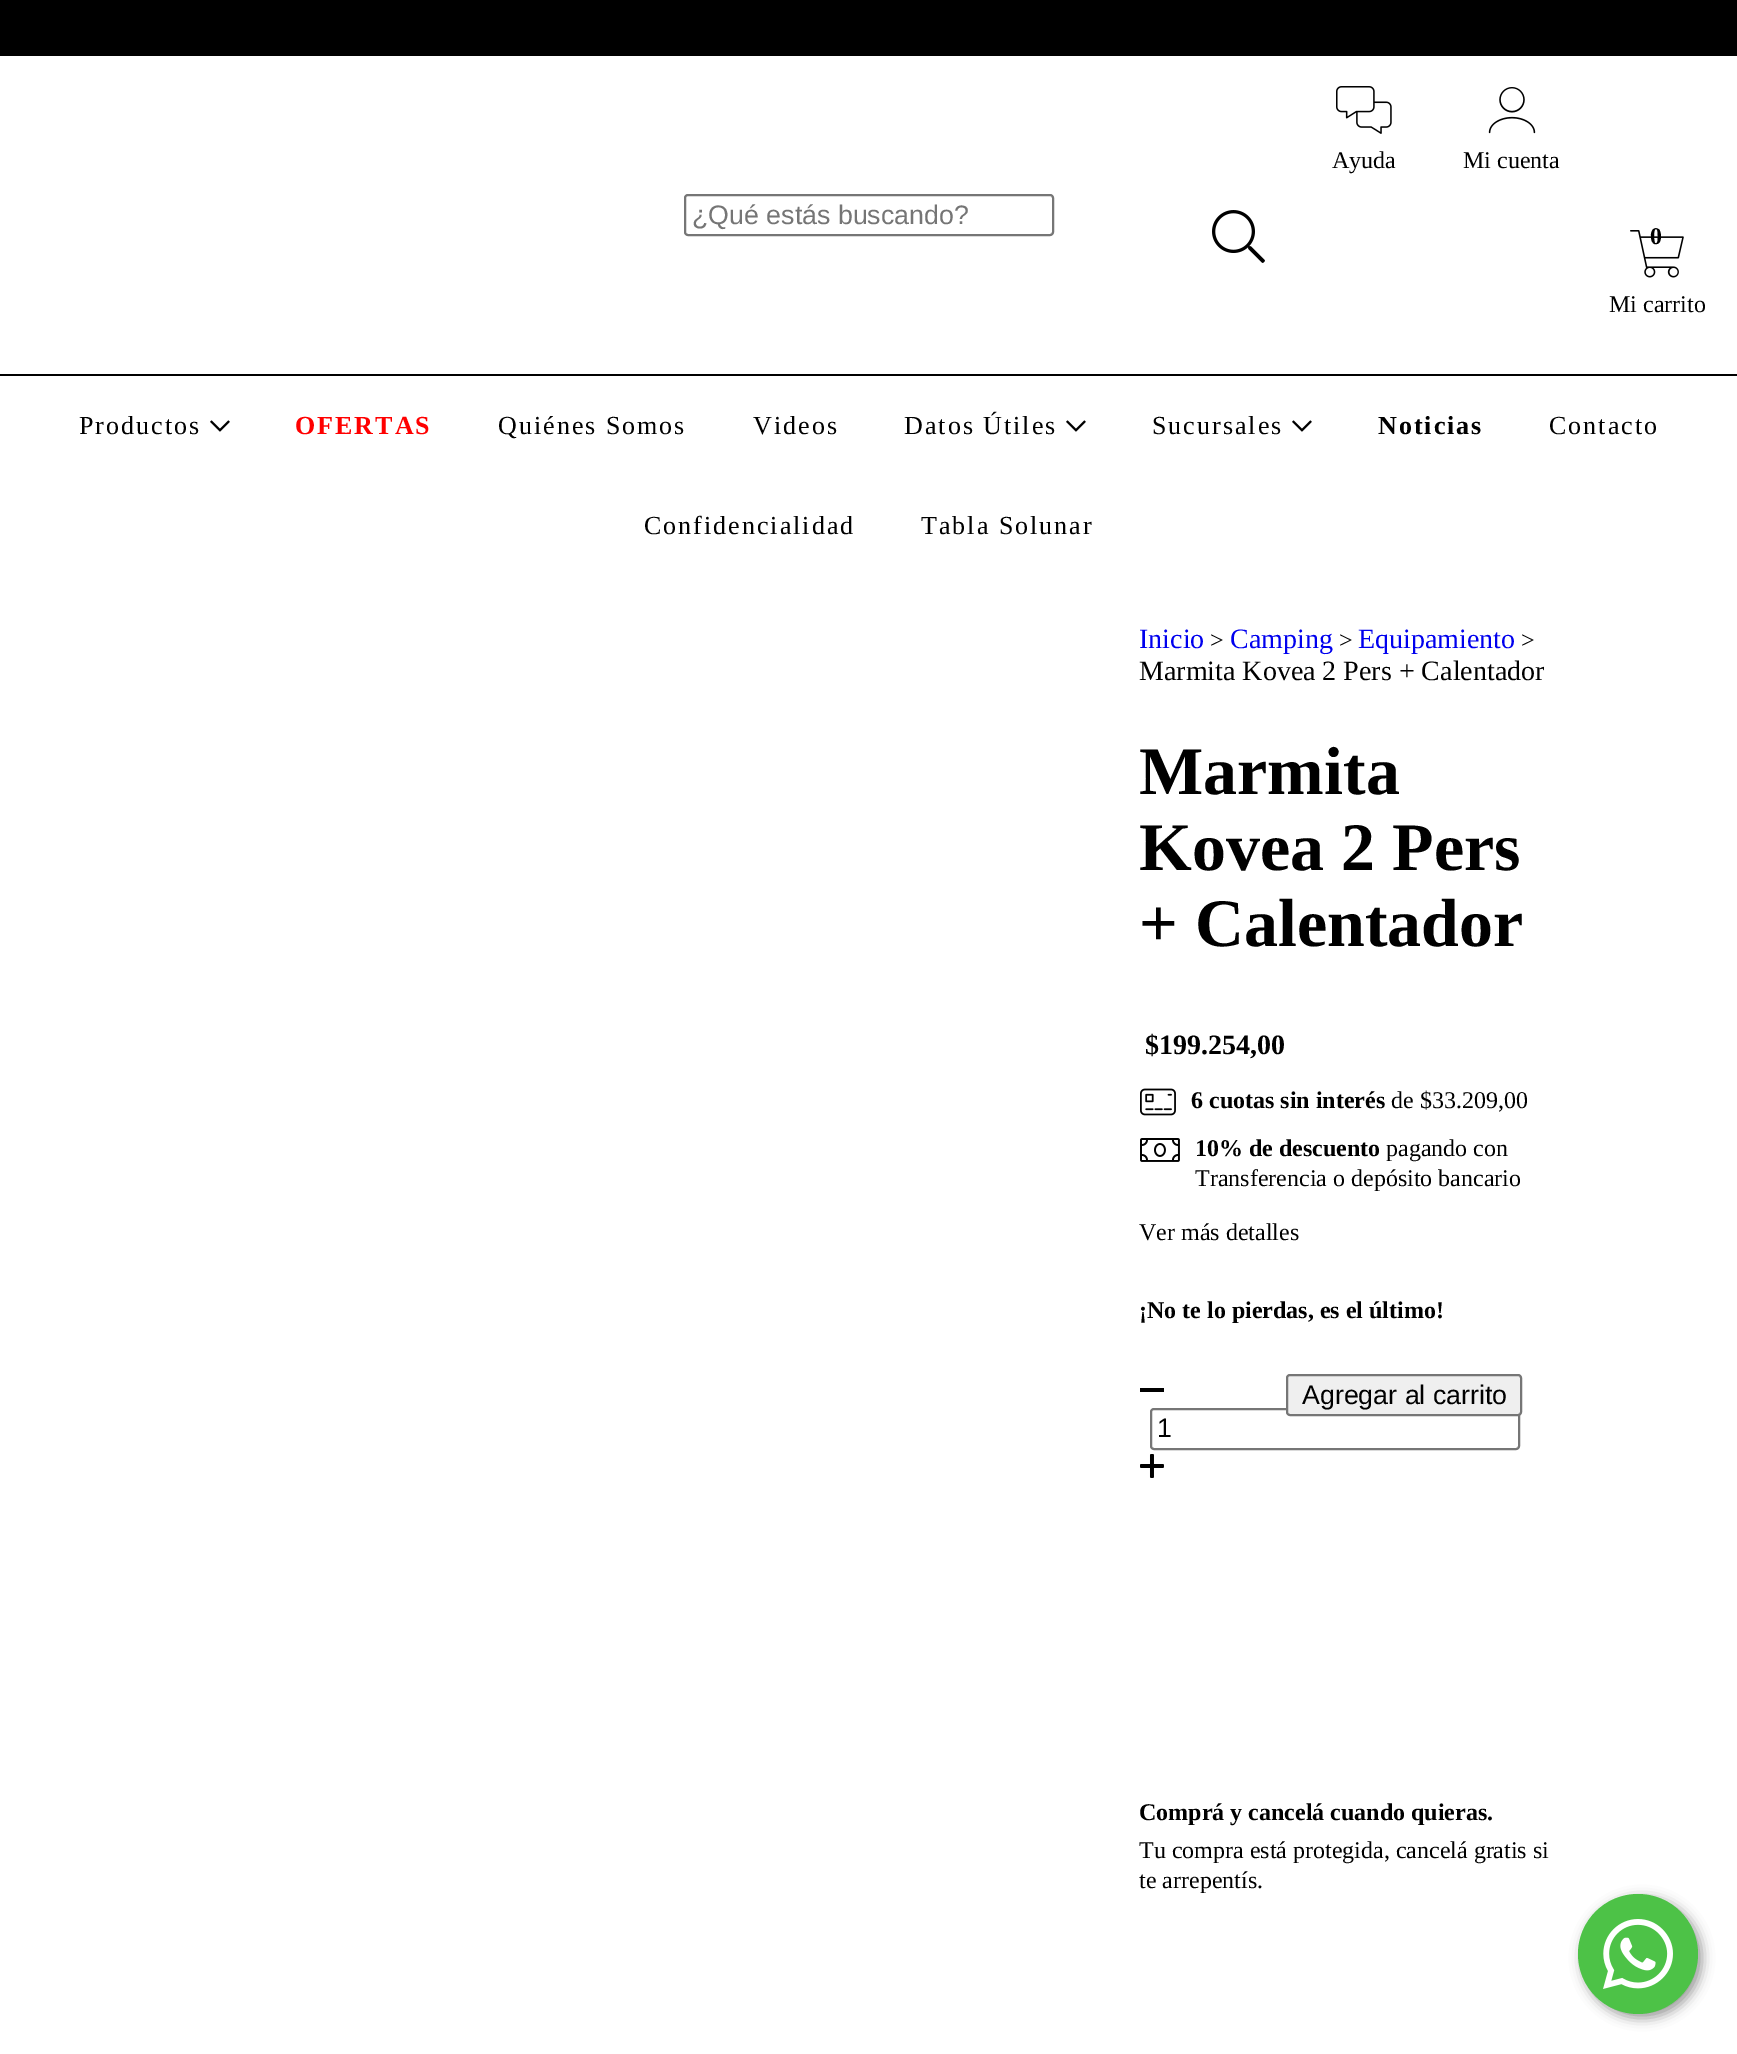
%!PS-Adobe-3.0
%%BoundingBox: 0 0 1737 2054
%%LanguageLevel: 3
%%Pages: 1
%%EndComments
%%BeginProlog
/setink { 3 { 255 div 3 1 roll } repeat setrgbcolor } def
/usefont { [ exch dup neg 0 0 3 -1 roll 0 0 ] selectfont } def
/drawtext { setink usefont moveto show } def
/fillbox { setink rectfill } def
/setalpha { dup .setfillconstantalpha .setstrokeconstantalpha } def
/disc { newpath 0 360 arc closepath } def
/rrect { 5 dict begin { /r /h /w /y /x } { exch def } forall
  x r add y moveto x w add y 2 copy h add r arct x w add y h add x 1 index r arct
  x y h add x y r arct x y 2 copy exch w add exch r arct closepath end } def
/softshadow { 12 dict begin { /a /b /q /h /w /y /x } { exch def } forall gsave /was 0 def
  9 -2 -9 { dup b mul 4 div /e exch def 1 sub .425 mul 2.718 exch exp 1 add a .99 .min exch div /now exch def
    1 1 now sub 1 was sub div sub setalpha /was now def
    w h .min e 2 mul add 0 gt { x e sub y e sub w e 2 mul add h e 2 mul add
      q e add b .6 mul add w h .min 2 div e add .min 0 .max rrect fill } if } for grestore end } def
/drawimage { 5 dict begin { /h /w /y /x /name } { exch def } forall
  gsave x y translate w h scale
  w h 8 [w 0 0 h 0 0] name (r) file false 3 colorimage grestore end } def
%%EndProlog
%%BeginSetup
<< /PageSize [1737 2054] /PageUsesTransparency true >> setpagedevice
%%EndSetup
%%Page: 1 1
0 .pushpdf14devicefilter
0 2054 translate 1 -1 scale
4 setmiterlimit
0 0 1737 2054 255 255 255 fillbox
0 0 1737 56 0 0 0 fillbox
118 118 118 setink
2 setlinewidth
685 195 368 40 3 rrect stroke
(¿Qué estás buscando?) 692 224 /LiberationSans-Regular 26.75 117 117 117 drawtext
(assets/img1.rgb) 1212 210 53 53 drawimage
(assets/img2.rgb) 1336 86 56 48 drawimage
(Ayuda) 1332 168 /LiberationSerif-Regular 24 0 0 0 drawtext
(assets/img3.rgb) 1488 87 48 47 drawimage
(Mi cuenta) 1463 168 /LiberationSerif-Regular 24 0 0 0 drawtext
(assets/img4.rgb) 1630 230 54 48 drawimage
(0) 1650 244 /LiberationSerif-Bold 24 0 0 0 drawtext
(Mi carrito) 1609 312 /LiberationSerif-Regular 24 0 0 0 drawtext
0 374 1737 2 0 0 0 fillbox
/LiberationSerif-Regular 26 usefont
79 434 moveto 2 0 (Productos) ashow
(assets/img5.rgb) 210 420 20 12 drawimage
/LiberationSerif-Bold 26 usefont
255 0 0 setink
295 434 moveto 2 0 (OFERTAS) ashow
/LiberationSerif-Regular 26 usefont
0 0 0 setink
498 434 moveto 2 0 (Quiénes Somos) ashow
753 434 moveto 2 0 (Videos) ashow
904 434 moveto 2 0 (Datos Útiles) ashow
(assets/img5.rgb) 1066 420 20 12 drawimage
1152 434 moveto 2 0 (Sucursales) ashow
(assets/img5.rgb) 1292 420 20 12 drawimage
/LiberationSerif-Bold 26 usefont
1378 434 moveto 2 0 (Noticias) ashow
/LiberationSerif-Regular 26 usefont
1549 434 moveto 2 0 (Contacto) ashow
644 534 moveto 2 0 (Confidencialidad) ashow
921 534 moveto 2 0 (Tabla Solunar) ashow
(Inicio) 1139 648 /LiberationSerif-Regular 28 0 0 238 drawtext
(>) 1210 648 /LiberationSerif-Regular 24 0 0 0 drawtext
(Camping) 1230 648 /LiberationSerif-Regular 28 0 0 238 drawtext
(>) 1339 648 /LiberationSerif-Regular 24 0 0 0 drawtext
(Equipamiento) 1358 648 /LiberationSerif-Regular 28 0 0 238 drawtext
(>) 1521 648 /LiberationSerif-Regular 24 0 0 0 drawtext
(Marmita Kovea 2 Pers + Calentador) 1139 680 /LiberationSerif-Regular 28 0 0 0 drawtext
(Marmita) 1139 794 /LiberationSerif-Bold 68 0 0 0 drawtext
(Kovea 2 Pers) 1139 870 /LiberationSerif-Bold 68 0 0 0 drawtext
(+ Calentador) 1139 946 /LiberationSerif-Bold 68 0 0 0 drawtext
($199.254,00) 1145 1054 /LiberationSerif-Bold 28 0 0 0 drawtext
(assets/img6.rgb) 1140 1088 36 28 drawimage
(6 cuotas sin interés) 1191 1108 /LiberationSerif-Bold 24 0 0 0 drawtext
(de $33.209,00) 1391 1108 /LiberationSerif-Regular 24 0 0 0 drawtext
(assets/img7.rgb) 1140 1138 40 24 drawimage
(10% de descuento) 1195 1156 /LiberationSerif-Bold 24 0 0 0 drawtext
(pagando con) 1386 1156 /LiberationSerif-Regular 24 0 0 0 drawtext
(Transferencia o depósito bancario) 1195 1186 /LiberationSerif-Regular 24 0 0 0 drawtext
(Ver más detalles) 1139 1240 /LiberationSerif-Regular 24 0 0 0 drawtext
(¡No te lo pierdas, es el último!) 1139 1318 /LiberationSerif-Bold 24 0 0 0 drawtext
118 118 118 setink
1151 1409 368 40 3 rrect stroke
239 239 239 setink
1287 1375 234 40 3 rrect gsave fill grestore
118 118 118 setink
stroke
(Agregar al carrito) 1302 1404 /LiberationSans-Regular 26.75 0 0 0 drawtext
1140 1388 24 4 0 0 0 fillbox
(1) 1157 1437 /LiberationSans-Regular 26.75 0 0 0 drawtext
(assets/img8.rgb) 1140 1454 24 24 drawimage
(Comprá y cancelá cuando quieras.) 1139 1820 /LiberationSerif-Bold 24 0 0 0 drawtext
(Tu compra está protegida, cancelá gratis si) 1139 1858 /LiberationSerif-Regular 24 0 0 0 drawtext
(te arrepentís.) 1139 1888 /LiberationSerif-Regular 24 0 0 0 drawtext
1582 1898 120 120 60 6 0.4 softshadow
77 194 71 setink
1638 1954 60 disc fill
(assets/img9.rgb) 1603 1919 70 70 drawimage
.poppdf14devicefilter showpage
%%EOF
